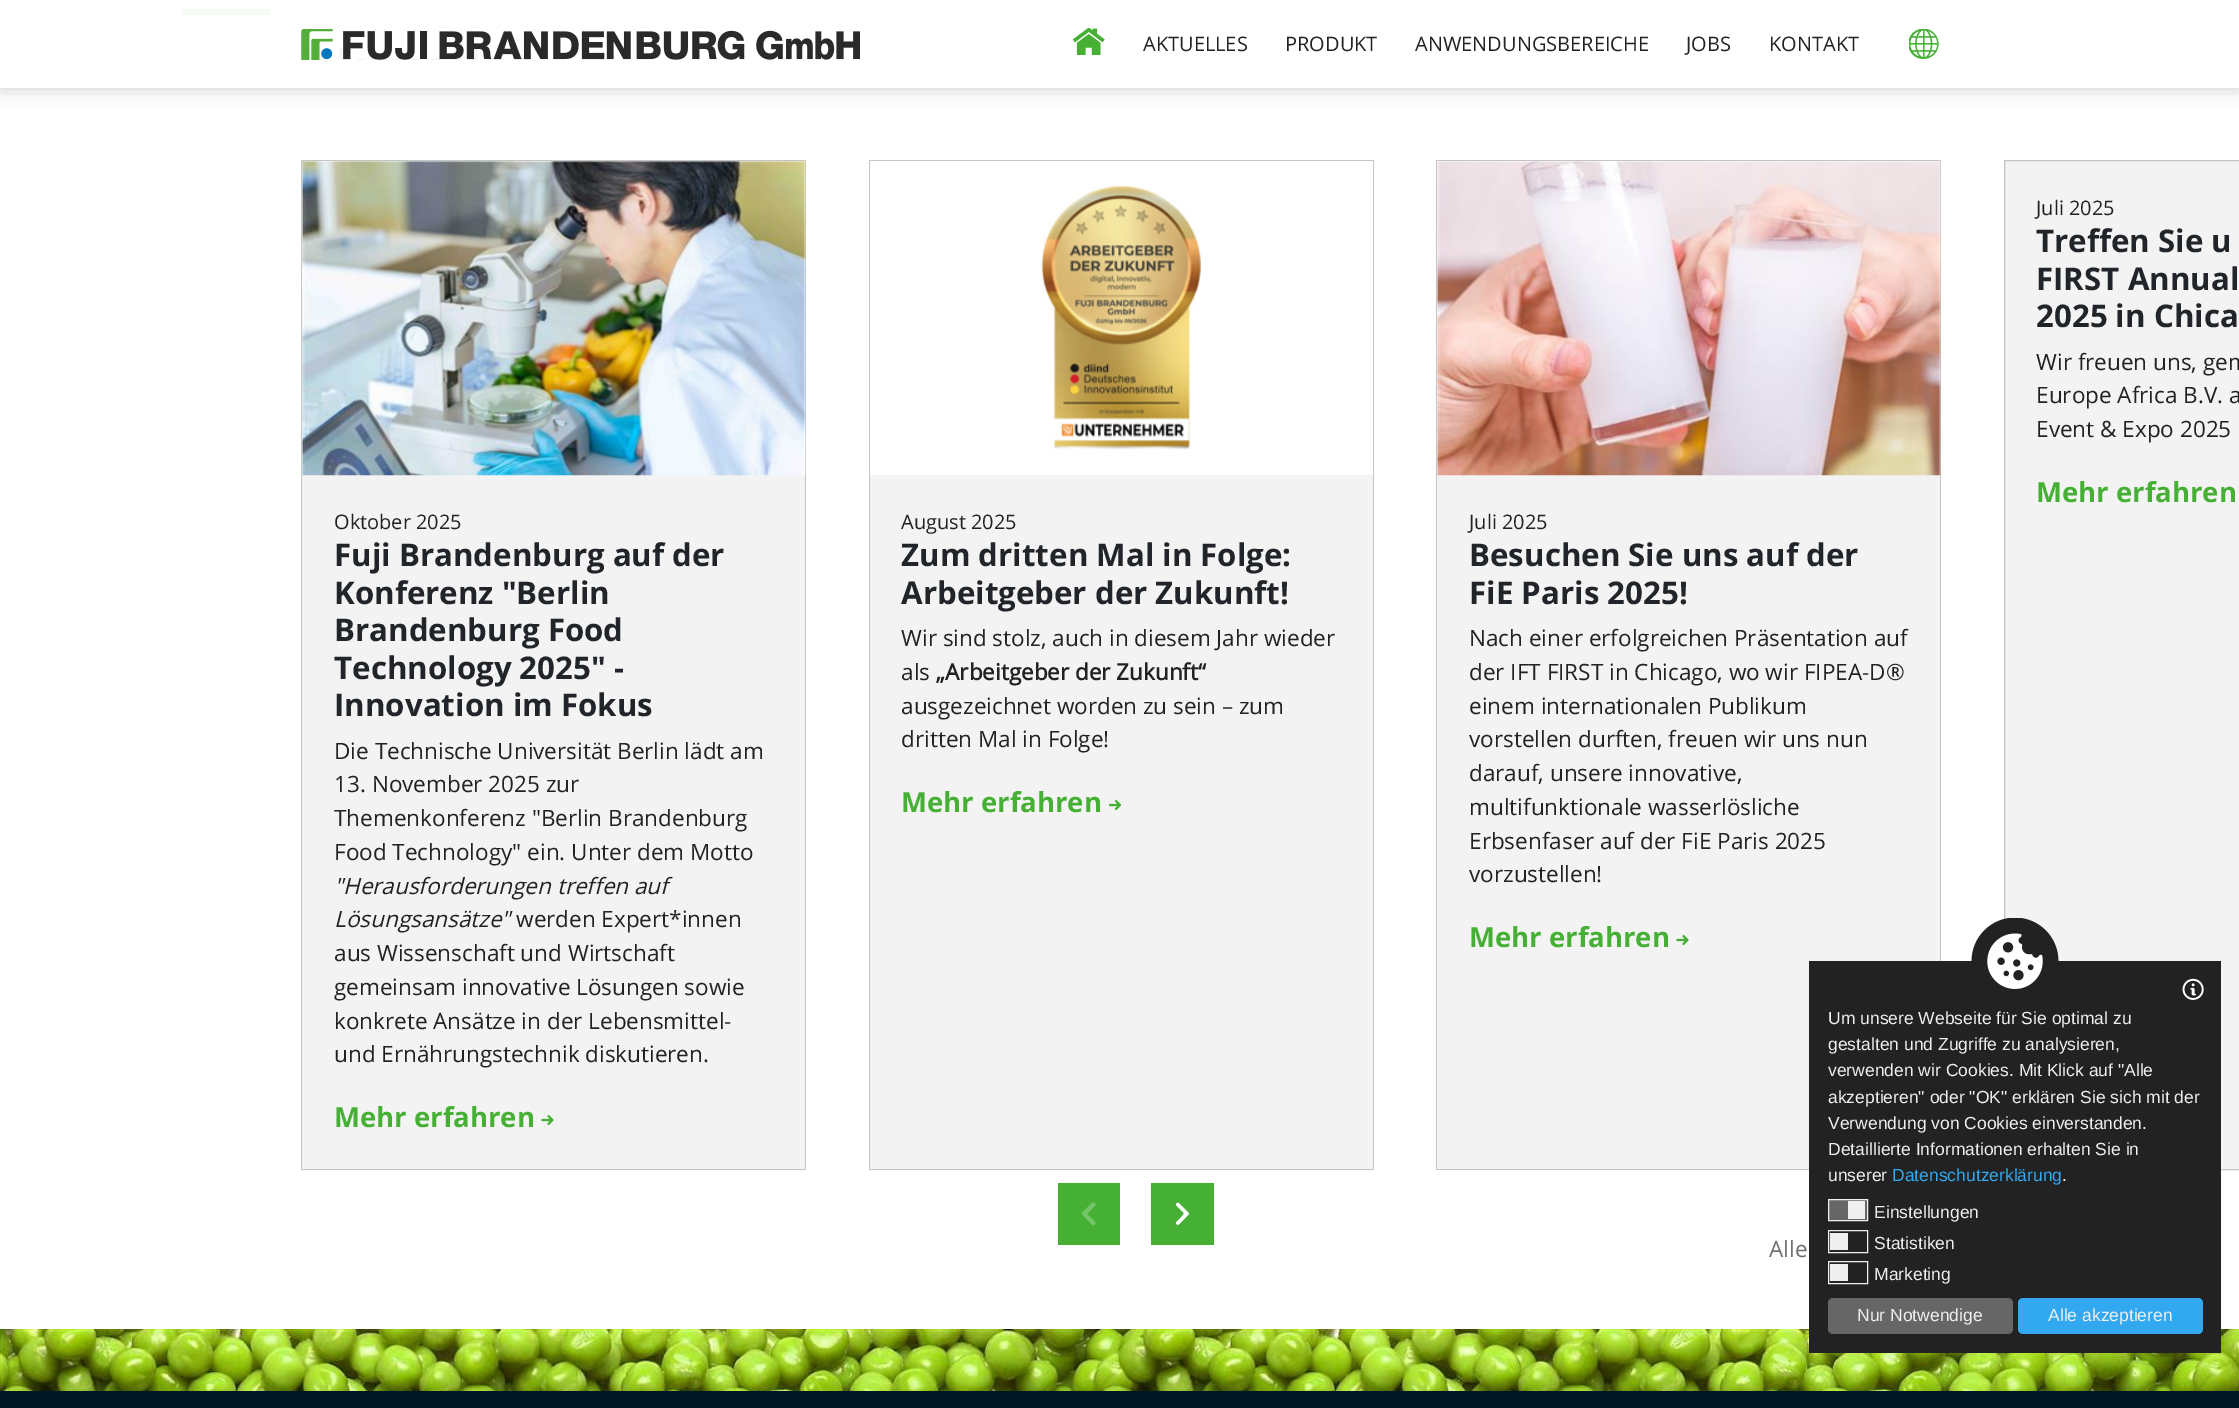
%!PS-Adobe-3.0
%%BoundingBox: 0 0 2239 1408
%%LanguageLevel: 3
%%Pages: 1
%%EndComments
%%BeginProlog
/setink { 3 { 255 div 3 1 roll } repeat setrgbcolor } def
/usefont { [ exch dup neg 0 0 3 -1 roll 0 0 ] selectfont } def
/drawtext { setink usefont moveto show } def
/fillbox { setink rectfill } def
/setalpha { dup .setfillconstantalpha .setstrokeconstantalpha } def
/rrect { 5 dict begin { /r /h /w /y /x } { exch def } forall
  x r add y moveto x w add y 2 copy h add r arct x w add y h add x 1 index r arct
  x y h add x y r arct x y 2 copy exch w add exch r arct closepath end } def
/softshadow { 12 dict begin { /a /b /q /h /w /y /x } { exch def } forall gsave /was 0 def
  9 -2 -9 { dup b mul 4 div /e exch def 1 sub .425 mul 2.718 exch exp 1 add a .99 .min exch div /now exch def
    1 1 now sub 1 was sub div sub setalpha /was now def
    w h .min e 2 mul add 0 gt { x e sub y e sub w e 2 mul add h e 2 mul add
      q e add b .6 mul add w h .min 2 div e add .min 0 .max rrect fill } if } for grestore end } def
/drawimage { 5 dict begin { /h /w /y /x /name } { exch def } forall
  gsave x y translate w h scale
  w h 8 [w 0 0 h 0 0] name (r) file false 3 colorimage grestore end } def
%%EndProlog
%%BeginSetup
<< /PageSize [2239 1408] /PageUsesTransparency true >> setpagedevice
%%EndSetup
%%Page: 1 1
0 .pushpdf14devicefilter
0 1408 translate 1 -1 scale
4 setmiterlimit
0 0 2239 1408 255 255 255 fillbox
183 9 87 6 70 176 53 fillbox
gsave
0 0 moveto 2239 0 lineto 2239 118 lineto 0 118 lineto closepath 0 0 moveto 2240 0 lineto 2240 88 lineto 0 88 lineto closepath eoclip newpath
0 0 0 setink
0 0 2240 88 0 9.5 0.2 softshadow
grestore
0.95 setalpha
0 9 2239 79 255 255 255 fillbox
1 setalpha
(assets/img1.rgb) 301 29 559 31 drawimage
(assets/img2.rgb) 1073 28 32 27 drawimage
(AKTUELLES) 1143 51 /OpenSans-Regular 20 34 34 34 drawtext
(PRODUKT) 1285 51 /OpenSans-Regular 20 34 34 34 drawtext
(ANWENDUNGSBEREICHE) 1415 51 /OpenSans-Regular 20 34 34 34 drawtext
(JOBS) 1686 51 /OpenSans-Regular 20 34 34 34 drawtext
(KONTAKT) 1769 51 /OpenSans-Regular 20 34 34 34 drawtext
(assets/img3.rgb) 1909 29 30 30 drawimage
243 243 243 setink
2004.5 160.5 moveto 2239.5 160.5 lineto 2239.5 1169.5 lineto 2004.5 1169.5 lineto closepath gsave fill grestore
196 196 196 setink
stroke
(Juli 2025) 2036 215 /OpenSans-Regular 20 34 34 34 drawtext
(Treffen Sie u) 2036 252 /OpenSans-Bold 31.25 33 37 41 drawtext
(FIRST Annual) 2036 290 /OpenSans-Bold 31.25 33 37 41 drawtext
(2025 in Chica) 2036 327 /OpenSans-Bold 31.25 33 37 41 drawtext
(Wir freuen uns, gem) 2036 370 /OpenSans-Regular 22.5 34 34 34 drawtext
(Europe Africa B.V. a) 2036 403 /OpenSans-Regular 22.5 34 34 34 drawtext
(Event & Expo 2025) 2036 437 /OpenSans-Regular 22.5 34 34 34 drawtext
(Mehr erfahren) 2036 502 /OpenSans-Bold 27.5 70 176 53 drawtext
301 160 505 1 196 196 196 fillbox
805 160 1 315 196 196 196 fillbox
301 160 1 315 196 196 196 fillbox
302 475 503 694 243 243 243 fillbox
805 475 1 695 196 196 196 fillbox
(assets/img4.rgb) 302 161 504 315 drawimage
301 1169 505 1 196 196 196 fillbox
301 475 1 695 196 196 196 fillbox
(Oktober 2025) 334 529 /OpenSans-Regular 20 34 34 34 drawtext
(Fuji Brandenburg auf der) 334 566 /OpenSans-Bold 31.25 33 37 41 drawtext
(Konferenz "Berlin) 334 604 /OpenSans-Bold 31.25 33 37 41 drawtext
(Brandenburg Food) 334 641 /OpenSans-Bold 31.25 33 37 41 drawtext
(Technology 2025" -) 334 679 /OpenSans-Bold 31.25 33 37 41 drawtext
(Innovation im Fokus) 334 716 /OpenSans-Bold 31.25 33 37 41 drawtext
(Die Technische Universität Berlin lädt am) 334 759 /OpenSans-Regular 22.5 34 34 34 drawtext
(13. November 2025 zur) 334 792 /OpenSans-Regular 22.5 34 34 34 drawtext
(Themenkonferenz "Berlin Brandenburg) 334 826 /OpenSans-Regular 22.5 34 34 34 drawtext
(Food Technology" ein. Unter dem Motto) 334 860 /OpenSans-Regular 22.5 34 34 34 drawtext
("Herausforderungen treffen auf) 334 894 /OpenSans-Italic 22.5 34 34 34 drawtext
(Lösungsansätze") 334 927 /OpenSans-Italic 22.5 34 34 34 drawtext
(werden Expert*innen) 516 927 /OpenSans-Regular 22.5 34 34 34 drawtext
(aus Wissenschaft und Wirtschaft) 334 961 /OpenSans-Regular 22.5 34 34 34 drawtext
(gemeinsam innovative Lösungen sowie) 334 995 /OpenSans-Regular 22.5 34 34 34 drawtext
(konkrete Ansätze in der Lebensmittel-) 334 1029 /OpenSans-Regular 22.5 34 34 34 drawtext
(und Ernährungstechnik diskutieren.) 334 1062 /OpenSans-Regular 22.5 34 34 34 drawtext
(Mehr erfahren) 334 1127 /OpenSans-Bold 27.5 70 176 53 drawtext
(assets/img5.rgb) 541 1115 13 10 drawimage
869 160 505 1 196 196 196 fillbox
1373 160 1 315 196 196 196 fillbox
869 160 1 315 196 196 196 fillbox
(assets/img6.rgb) 1041 185 160 265 drawimage
870 475 503 694 243 243 243 fillbox
1373 475 1 695 196 196 196 fillbox
869 1169 505 1 196 196 196 fillbox
869 475 1 695 196 196 196 fillbox
(August 2025) 901 529 /OpenSans-Regular 20 34 34 34 drawtext
(Zum dritten Mal in Folge:) 901 566 /OpenSans-Bold 31.25 33 37 41 drawtext
(Arbeitgeber der Zukunft!) 901 604 /OpenSans-Bold 31.25 33 37 41 drawtext
(Wir sind stolz, auch in diesem Jahr wieder) 901 646 /OpenSans-Regular 22.5 34 34 34 drawtext
(als) 901 680 /OpenSans-Regular 22.5 34 34 34 drawtext
(„Arbeitgeber der Zukunft“) 936 680 /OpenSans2-Bold 22.5 34 34 34 drawtext
(ausgezeichnet worden zu sein – zum) 901 714 /OpenSans-Regular 22.5 34 34 34 drawtext
(dritten Mal in Folge!) 901 747 /OpenSans-Regular 22.5 34 34 34 drawtext
(Mehr erfahren) 901 812 /OpenSans-Bold 27.5 70 176 53 drawtext
(assets/img7.rgb) 1109 800 12 10 drawimage
1436 160 505 1 196 196 196 fillbox
1940 160 1 315 196 196 196 fillbox
1436 160 1 315 196 196 196 fillbox
1437 475 503 694 243 243 243 fillbox
1940 475 1 486 196 196 196 fillbox
(assets/img8.rgb) 1437 161 504 315 drawimage
1436 1169 373 1 196 196 196 fillbox
1436 475 1 695 196 196 196 fillbox
(Juli 2025) 1469 529 /OpenSans-Regular 20 34 34 34 drawtext
(Besuchen Sie uns auf der) 1469 566 /OpenSans-Bold 31.25 33 37 41 drawtext
(FiE Paris 2025!) 1469 604 /OpenSans-Bold 31.25 33 37 41 drawtext
(Nach einer erfolgreichen Präsentation auf) 1469 646 /OpenSans-Regular 22.5 34 34 34 drawtext
(der IFT FIRST in Chicago, wo wir FIPEA-D®) 1469 680 /OpenSans-Regular 22.5 34 34 34 drawtext
(einem internationalen Publikum) 1469 714 /OpenSans-Regular 22.5 34 34 34 drawtext
(vorstellen durften, freuen wir uns nun) 1469 747 /OpenSans-Regular 22.5 34 34 34 drawtext
(darauf, unsere innovative,) 1469 781 /OpenSans-Regular 22.5 34 34 34 drawtext
(multifunktionale wasserlösliche) 1469 815 /OpenSans-Regular 22.5 34 34 34 drawtext
(Erbsenfaser auf der FiE Paris 2025) 1469 849 /OpenSans-Regular 22.5 34 34 34 drawtext
(vorzustellen!) 1469 882 /OpenSans-Regular 22.5 34 34 34 drawtext
(Mehr erfahren) 1469 947 /OpenSans-Bold 27.5 70 176 53 drawtext
(assets/img5.rgb) 1676 935 13 10 drawimage
1058 1183 62 62 70 176 53 fillbox
(assets/img9.rgb) 1081 1202 15 24 drawimage
1151 1183 63 62 70 176 53 fillbox
(assets/img10.rgb) 1175 1202 15 24 drawimage
(Alle) 1769 1257 /OpenSans-Regular 22.5 112 112 112 drawtext
(assets/img11.rgb) 0 1329 2239 62 drawimage
0 1391 2239 17 0 23 38 fillbox
1809 961 412 392 34 34 34 fillbox
(assets/img12.rgb) 1971 918 88 71 drawimage
(assets/img13.rgb) 2182 978 22 22 drawimage
(Um unsere Webseite für Sie optimal zu) 1828 1024 /LiberationSans-Regular 17.5 239 239 239 drawtext
(gestalten und Zugriffe zu analysieren,) 1828 1050 /LiberationSans-Regular 17.5 239 239 239 drawtext
(verwenden wir Cookies. Mit Klick auf "Alle) 1828 1076 /LiberationSans-Regular 17.5 239 239 239 drawtext
(akzeptieren" oder "OK" erklären Sie sich mit der) 1828 1103 /LiberationSans-Regular 17.5 239 239 239 drawtext
(Verwendung von Cookies einverstanden.) 1828 1129 /LiberationSans-Regular 17.5 239 239 239 drawtext
(Detaillierte Informationen erhalten Sie in) 1828 1155 /LiberationSans-Regular 17.5 239 239 239 drawtext
(unserer) 1828 1181 /LiberationSans-Regular 17.5 239 239 239 drawtext
(Datenschutzerklärung) 1892 1181 /LiberationSans-Regular 17.5 49 168 240 drawtext
(.) 2062 1181 /LiberationSans-Regular 17.5 239 239 239 drawtext
102 102 102 setink
1828.5 1199.5 moveto 1867.5 1199.5 lineto 1867.5 1220.5 lineto 1828.5 1220.5 lineto closepath gsave fill grestore
239 239 239 setink
stroke
1848 1201 17 18 239 239 239 fillbox
(Einstellungen) 1874 1218 /LiberationSans-Regular 17.5 239 239 239 drawtext
1828.5 1230.5 39 22 rectstroke
1830 1233 18 17 239 239 239 fillbox
(Statistiken) 1874 1249 /LiberationSans-Regular 17.5 239 239 239 drawtext
1828.5 1261.5 39 22 rectstroke
1830 1264 18 17 239 239 239 fillbox
(Marketing) 1874 1280 /LiberationSans-Regular 17.5 239 239 239 drawtext
102 102 102 setink
1828 1298 185 36 5 rrect fill
(Nur Notwendige) 1857 1321 /LiberationSans-Regular 17.5 239 239 239 drawtext
49 168 240 setink
2018 1298 185 36 5 rrect fill
(Alle akzeptieren) 2048 1321 /LiberationSans-Regular 17.5 239 239 239 drawtext
.poppdf14devicefilter showpage
%%EOF
